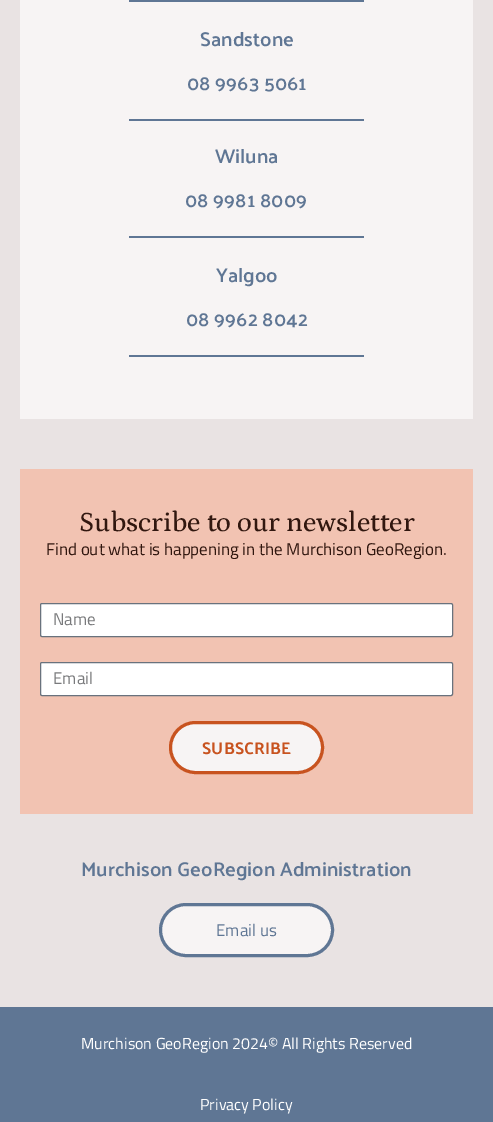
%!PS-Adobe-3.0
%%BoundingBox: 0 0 493 1122
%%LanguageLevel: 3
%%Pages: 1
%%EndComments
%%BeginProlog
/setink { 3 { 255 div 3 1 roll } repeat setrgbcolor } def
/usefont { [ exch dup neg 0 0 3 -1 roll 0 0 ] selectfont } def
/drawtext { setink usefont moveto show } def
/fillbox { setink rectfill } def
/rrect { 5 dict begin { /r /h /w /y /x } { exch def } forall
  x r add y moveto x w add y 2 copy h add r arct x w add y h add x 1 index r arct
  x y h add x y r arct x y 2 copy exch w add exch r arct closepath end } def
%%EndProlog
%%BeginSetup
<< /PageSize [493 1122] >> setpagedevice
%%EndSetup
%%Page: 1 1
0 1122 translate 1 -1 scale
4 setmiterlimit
0 0 493 1122 233 227 227 fillbox
20 0 453 419 247 244 244 fillbox
129 0 235 2 95 118 148 fillbox
(Sandstone) 200 46 /Palanquin-SemiBold 20 95 118 148 drawtext
(08 9963 5061) 187 90 /Palanquin-SemiBold 20 95 118 148 drawtext
129 119 235 2 95 118 148 fillbox
(Wiluna) 215 163 /Palanquin-SemiBold 20 95 118 148 drawtext
(08 9981 8009) 185 207 /Palanquin-SemiBold 20 95 118 148 drawtext
129 236 235 2 95 118 148 fillbox
(Yalgoo) 216 282 /Palanquin-SemiBold 20 95 118 148 drawtext
(08 9962 8042) 186 326 /Palanquin-SemiBold 20 95 118 148 drawtext
129 355 235 2 95 118 148 fillbox
20 469 453 345 242 195 178 fillbox
(Subscribe to our newsletter) 79 531 /Petrona-Medium 28 49 23 15 drawtext
(Find out what is happening in the Murchison GeoRegion.) 46 555 /TitilliumWeb-Regular 17 49 23 15 drawtext
255 255 255 setink
40.5 603.5 412 33 1.5 rrect gsave fill grestore
105 114 125 setink
stroke
(Name) 53 625 /TitilliumWeb-Regular 17 121 122 124 drawtext
255 255 255 setink
40.5 662.5 412 33 1.5 rrect gsave fill grestore
105 114 125 setink
stroke
(Email) 53 684 /TitilliumWeb-Regular 17 121 122 124 drawtext
247 244 244 setink
170.5 722.5 152 50 25 rrect gsave fill grestore
200 83 31 setink
3 setlinewidth
stroke
(SUBSCRIBE) 202 754 /Palanquin-Bold 17 200 83 31 drawtext
(Murchison GeoRegion Administration) 81 876 /Palanquin-SemiBold 20 95 118 148 drawtext
247 244 244 setink
160.5 904.5 172 51 25.5 rrect gsave fill grestore
95 118 148 setink
stroke
(Email us) 216 936 /TitilliumWeb-Regular 17 95 118 148 drawtext
0 1007 493 115 95 118 148 fillbox
(Murchison GeoRegion 2024© All Rights Reserved) 81 1049 /TitilliumWeb-Regular 16 255 255 255 drawtext
(Privacy Policy) 200 1110 /TitilliumWeb-Regular 16 255 255 255 drawtext
showpage
%%EOF
